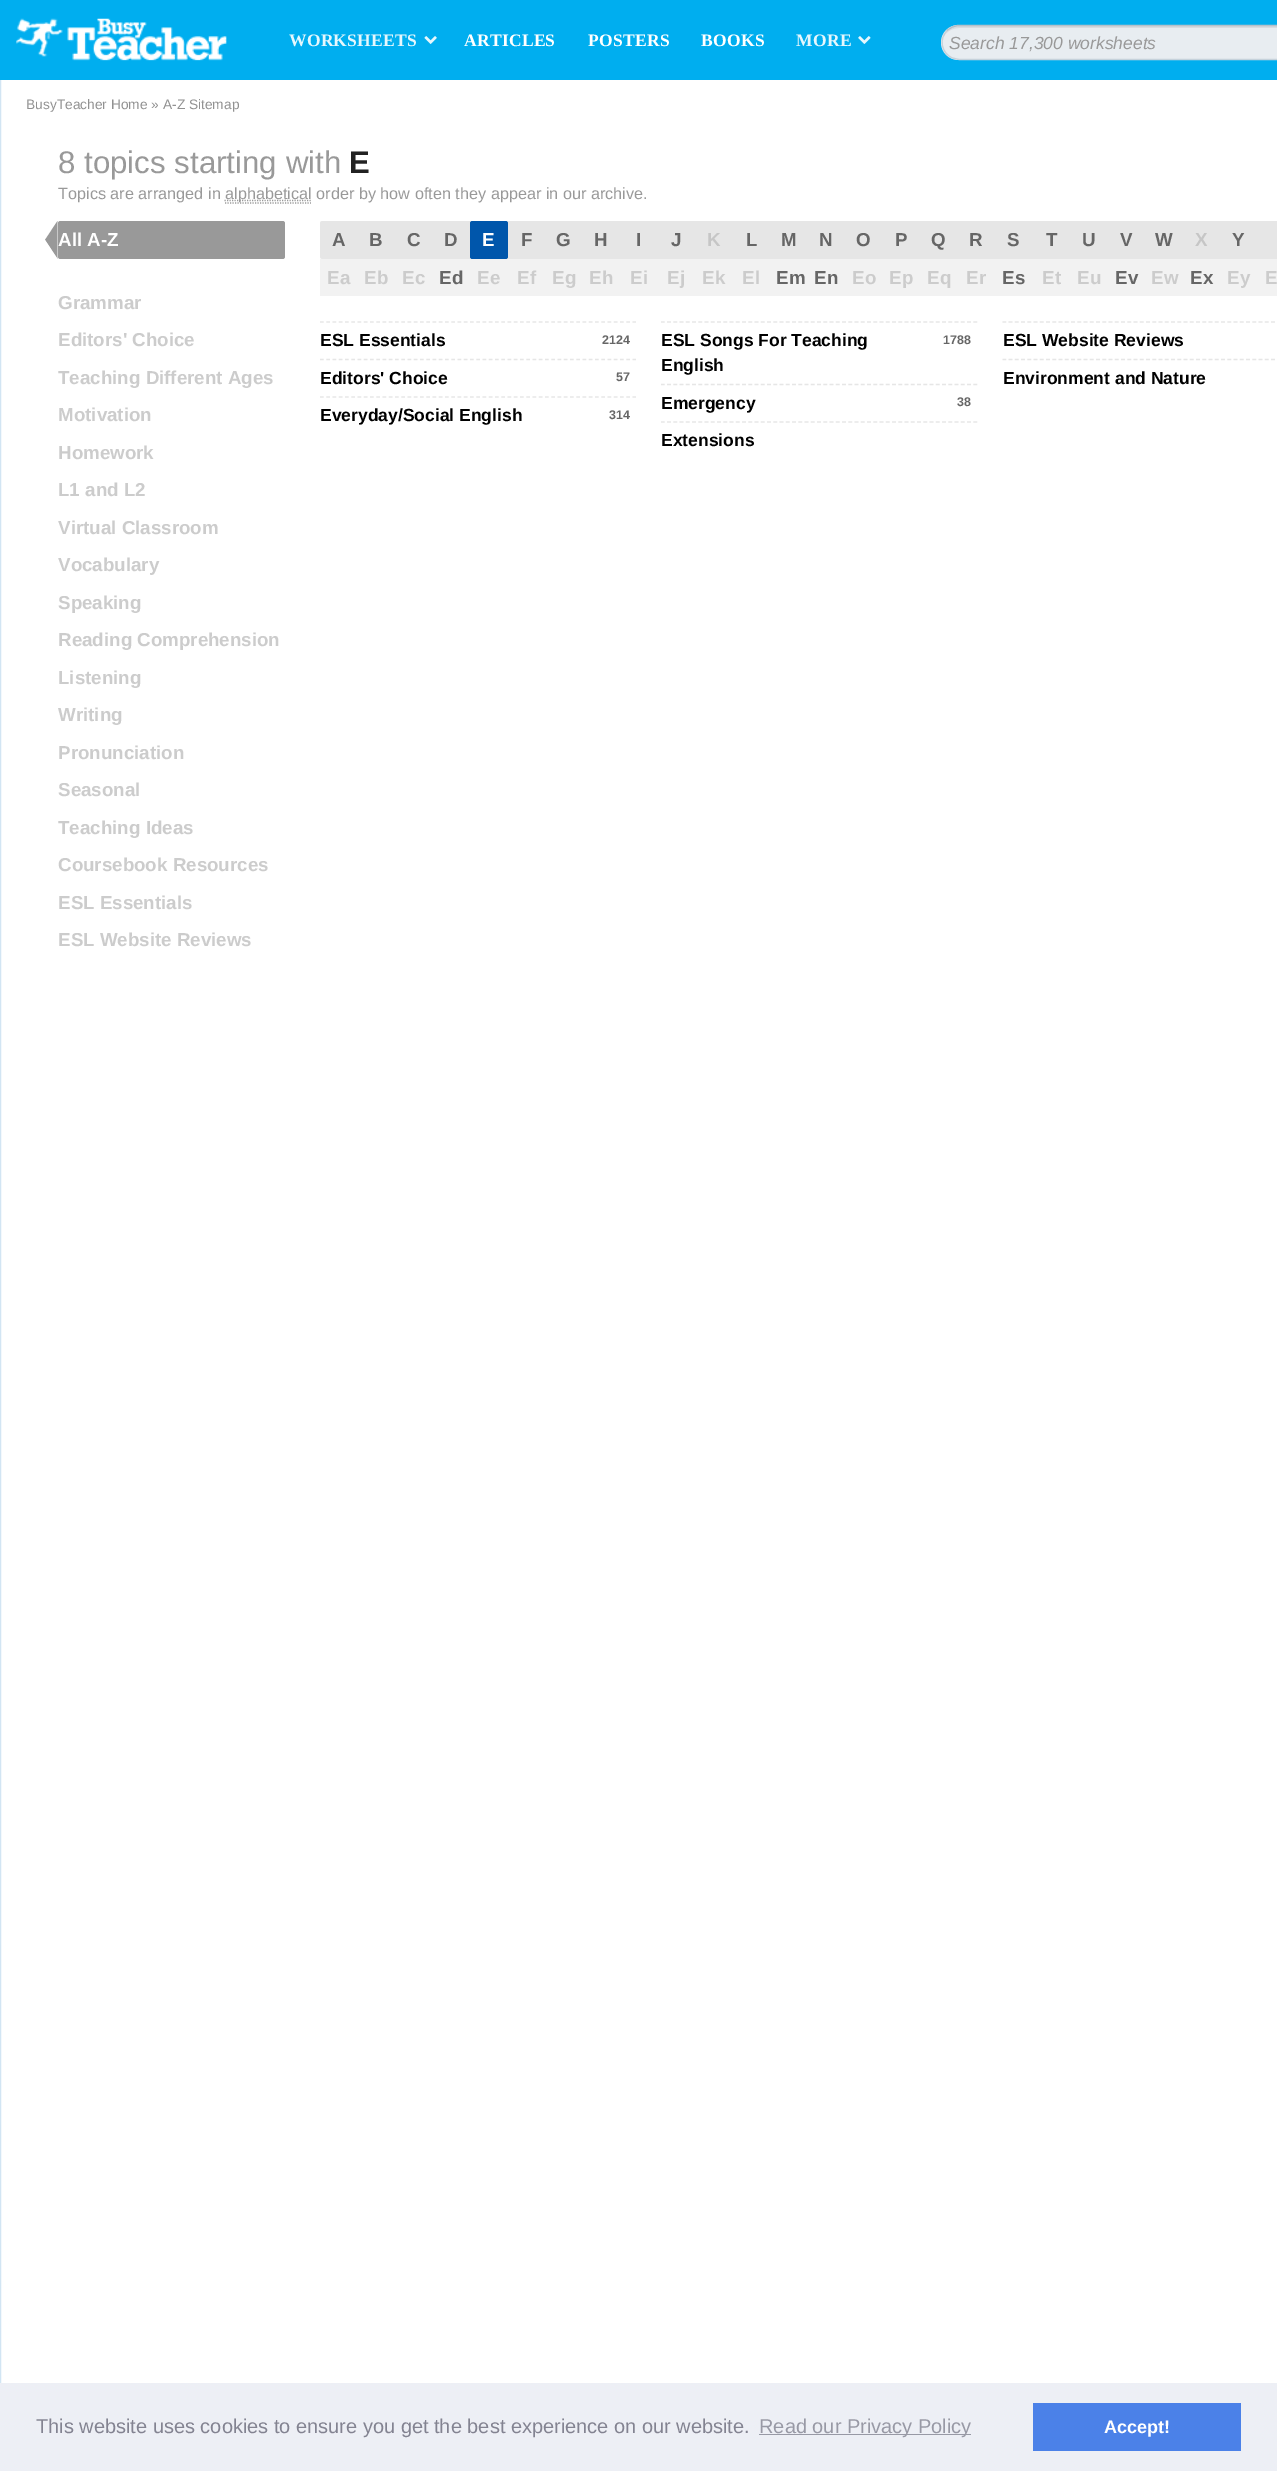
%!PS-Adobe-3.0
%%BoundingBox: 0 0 1277 2471
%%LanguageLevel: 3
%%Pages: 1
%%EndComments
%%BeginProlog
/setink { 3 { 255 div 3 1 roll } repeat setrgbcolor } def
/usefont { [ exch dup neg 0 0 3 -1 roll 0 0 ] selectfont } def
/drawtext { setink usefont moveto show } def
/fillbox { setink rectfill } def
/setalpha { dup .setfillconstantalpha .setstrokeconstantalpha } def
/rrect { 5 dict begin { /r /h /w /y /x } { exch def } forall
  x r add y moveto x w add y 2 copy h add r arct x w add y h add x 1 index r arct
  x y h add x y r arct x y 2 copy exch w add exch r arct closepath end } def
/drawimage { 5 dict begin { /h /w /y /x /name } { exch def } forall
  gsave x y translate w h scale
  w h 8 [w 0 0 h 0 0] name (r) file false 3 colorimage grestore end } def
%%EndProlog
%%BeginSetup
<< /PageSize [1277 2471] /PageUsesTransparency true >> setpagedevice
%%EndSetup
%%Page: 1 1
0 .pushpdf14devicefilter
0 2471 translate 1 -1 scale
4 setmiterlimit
0 0 1277 2471 255 255 255 fillbox
210 229 243 setink
0.5 0.5 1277 2400 rectstroke
0 0 1277 80 0 174 239 fillbox
(assets/img1.rgb) 16 18 211 43 drawimage
/LiberationSerif-Bold 17.5 usefont
230 247 253 setink
289 46 moveto 0.25 0 (WORKSHEETS) ashow
(assets/img2.rgb) 424 36 13 8 drawimage
255 255 255 setink
464 46 moveto 0.25 0 (ARTICLES) ashow
588 46 moveto 0.25 0 (POSTERS) ashow
701 46 moveto 0.25 0 (BOOKS) ashow
230 247 253 setink
796 46 moveto 0.25 0 (MORE) ashow
(assets/img3.rgb) 858 36 13 8 drawimage
232 237 241 setink
941 25 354 35 17.5 rrect fill
180 193 203 setink
1.2 setlinewidth
947 30.5 moveto 950 27.5 954.5 25.5 959 25.5 curveto 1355 25.5 lineto 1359.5 25.5 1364 27.5 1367 30.5 curveto stroke
198 210 219 setink
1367 30.5 moveto 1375.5 39 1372.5 53.5 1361.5 58 curveto 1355 59.5 lineto 959 59.5 lineto 952.5 58 lineto 941.5 53.5 938.5 39 947 30.5 curveto stroke
0.07 setalpha
0 0 0 setink
959 28 moveto 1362 28 lineto 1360 27 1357 26 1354 26 curveto 960 26 lineto 953 26 947 30 944 36 curveto 947 31 953 28 959 28 curveto closepath fill
1 setalpha
(Search 17,300 worksheets) 949 49 /LiberationSans-Italic 17.5 153 153 153 drawtext
(BusyTeacher Home » A-Z Sitemap) 26 109 /LiberationSans-Regular 13.75 145 145 145 drawtext
(8 topics starting with) 58 173 /LiberationSans-Regular 31.25 153 153 153 drawtext
(E) 349 173 /LiberationSans-Bold 31.25 34 34 34 drawtext
(Topics are arranged in) 58 199 /LiberationSans-Regular 16.25 153 153 153 drawtext
[1.25 1.25] 0 setdash
225 203 moveto 311 203 lineto stroke
224.5 200.5 moveto 311.5 200.5 lineto stroke
(alphabetical order by how often they appear in our archive.) 225 199 /LiberationSans-Regular 16.25 153 153 153 drawtext
58 221 227 38 2.5 rrect fill
57.5 221 moveto 57.5 259 lineto 45 240 lineto closepath fill
255 255 255 setink
57.5 259 moveto 45 259 lineto 45 240 lineto closepath fill
(All A-Z) 58 246 /LiberationSans-Bold 18.75 255 255 255 drawtext
(Grammar) 58 309 /LiberationSans-Bold 18.75 204 204 204 drawtext
(Editors' Choice) 58 346 /LiberationSans-Bold 18.75 204 204 204 drawtext
(Teaching Different Ages) 58 384 /LiberationSans-Bold 18.75 204 204 204 drawtext
(Motivation) 58 421 /LiberationSans-Bold 18.75 204 204 204 drawtext
(Homework) 58 459 /LiberationSans-Bold 18.75 204 204 204 drawtext
(L1 and L2) 58 496 /LiberationSans-Bold 18.75 204 204 204 drawtext
(Virtual Classroom) 58 534 /LiberationSans-Bold 18.75 204 204 204 drawtext
(Vocabulary) 58 571 /LiberationSans-Bold 18.75 204 204 204 drawtext
(Speaking) 58 609 /LiberationSans-Bold 18.75 204 204 204 drawtext
(Reading Comprehension) 58 646 /LiberationSans-Bold 18.75 204 204 204 drawtext
(Listening) 58 684 /LiberationSans-Bold 18.75 204 204 204 drawtext
(Writing) 58 721 /LiberationSans-Bold 18.75 204 204 204 drawtext
(Pronunciation) 58 759 /LiberationSans-Bold 18.75 204 204 204 drawtext
(Seasonal) 58 796 /LiberationSans-Bold 18.75 204 204 204 drawtext
(Teaching Ideas) 58 834 /LiberationSans-Bold 18.75 204 204 204 drawtext
(Coursebook Resources) 58 871 /LiberationSans-Bold 18.75 204 204 204 drawtext
(ESL Essentials) 58 909 /LiberationSans-Bold 18.75 204 204 204 drawtext
(ESL Website Reviews) 58 946 /LiberationSans-Bold 18.75 204 204 204 drawtext
230 230 230 setink
322.5 221 moveto 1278 221 lineto 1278 259 lineto 322.5 259 lineto 321 259 320 258 320 256.5 curveto 320 223.5 lineto 320 222 321 221 322.5 221 curveto closepath fill
(A) 332 246 /LiberationSans-Bold 18.75 102 102 102 drawtext
(B) 369 246 /LiberationSans-Bold 18.75 102 102 102 drawtext
(C) 407 246 /LiberationSans-Bold 18.75 102 102 102 drawtext
(D) 444 246 /LiberationSans-Bold 18.75 102 102 102 drawtext
0 86 171 setink
470 221 38 38 2.5 rrect fill
(E) 482 246 /LiberationSans-Bold 18.75 255 255 255 drawtext
(F) 521 246 /LiberationSans-Bold 18.75 102 102 102 drawtext
(G) 556 246 /LiberationSans-Bold 18.75 102 102 102 drawtext
(H) 594 246 /LiberationSans-Bold 18.75 102 102 102 drawtext
(I) 636 246 /LiberationSans-Bold 18.75 102 102 102 drawtext
(J) 671 246 /LiberationSans-Bold 18.75 102 102 102 drawtext
(K) 707 246 /LiberationSans-Bold 18.75 198 198 198 drawtext
(L) 746 246 /LiberationSans-Bold 18.75 102 102 102 drawtext
(M) 781 246 /LiberationSans-Bold 18.75 102 102 102 drawtext
(N) 819 246 /LiberationSans-Bold 18.75 102 102 102 drawtext
(O) 856 246 /LiberationSans-Bold 18.75 102 102 102 drawtext
(P) 895 246 /LiberationSans-Bold 18.75 102 102 102 drawtext
(Q) 931 246 /LiberationSans-Bold 18.75 102 102 102 drawtext
(R) 969 246 /LiberationSans-Bold 18.75 102 102 102 drawtext
(S) 1007 246 /LiberationSans-Bold 18.75 102 102 102 drawtext
(T) 1046 246 /LiberationSans-Bold 18.75 102 102 102 drawtext
(U) 1082 246 /LiberationSans-Bold 18.75 102 102 102 drawtext
(V) 1120 246 /LiberationSans-Bold 18.75 102 102 102 drawtext
(W) 1155 246 /LiberationSans-Bold 18.75 102 102 102 drawtext
(X) 1195 246 /LiberationSans-Bold 18.75 198 198 198 drawtext
(Y) 1232 246 /LiberationSans-Bold 18.75 102 102 102 drawtext
320 259 957 37 242 242 242 fillbox
(Ea) 327 284 /LiberationSans-Bold 18.75 204 204 204 drawtext
(Eb) 364 284 /LiberationSans-Bold 18.75 204 204 204 drawtext
(Ec) 402 284 /LiberationSans-Bold 18.75 204 204 204 drawtext
(Ed) 439 284 /LiberationSans-Bold 18.75 102 102 102 drawtext
(Ee) 477 284 /LiberationSans-Bold 18.75 204 204 204 drawtext
(Ef) 517 284 /LiberationSans-Bold 18.75 204 204 204 drawtext
(Eg) 552 284 /LiberationSans-Bold 18.75 204 204 204 drawtext
(Eh) 589 284 /LiberationSans-Bold 18.75 204 204 204 drawtext
(Ei) 630 284 /LiberationSans-Bold 18.75 204 204 204 drawtext
(Ej) 667 284 /LiberationSans-Bold 18.75 204 204 204 drawtext
(Ek) 702 284 /LiberationSans-Bold 18.75 204 204 204 drawtext
(El) 742 284 /LiberationSans-Bold 18.75 204 204 204 drawtext
(Em) 776 284 /LiberationSans-Bold 18.75 102 102 102 drawtext
(En) 814 284 /LiberationSans-Bold 18.75 102 102 102 drawtext
(Eo) 852 284 /LiberationSans-Bold 18.75 204 204 204 drawtext
(Ep) 889 284 /LiberationSans-Bold 18.75 204 204 204 drawtext
(Eq) 927 284 /LiberationSans-Bold 18.75 204 204 204 drawtext
(Er) 966 284 /LiberationSans-Bold 18.75 204 204 204 drawtext
(Es) 1002 284 /LiberationSans-Bold 18.75 102 102 102 drawtext
(Et) 1042 284 /LiberationSans-Bold 18.75 204 204 204 drawtext
(Eu) 1077 284 /LiberationSans-Bold 18.75 204 204 204 drawtext
(Ev) 1115 284 /LiberationSans-Bold 18.75 102 102 102 drawtext
(Ew) 1151 284 /LiberationSans-Bold 18.75 204 204 204 drawtext
(Ex) 1190 284 /LiberationSans-Bold 18.75 102 102 102 drawtext
(Ey) 1227 284 /LiberationSans-Bold 18.75 204 204 204 drawtext
(E) 1265 284 /LiberationSans-Bold 18.75 204 204 204 drawtext
230 230 230 setink
[3.75 2.5] 0 setdash
320 322 moveto 636 322 lineto stroke
(ESL Essentials) 320 346 /LiberationSans-Bold 17.5 0 0 0 drawtext
(2124) 602 344 /LiberationSans-Bold 12.5 102 102 102 drawtext
230 230 230 setink
320 359.5 moveto 636 359.5 lineto stroke
(Editors' Choice) 320 384 /LiberationSans-Bold 17.5 0 0 0 drawtext
(57) 616 381 /LiberationSans-Bold 12.5 102 102 102 drawtext
230 230 230 setink
320 397 moveto 636 397 lineto stroke
(Everyday/Social English) 320 421 /LiberationSans-Bold 17.5 0 0 0 drawtext
(314) 609 419 /LiberationSans-Bold 12.5 102 102 102 drawtext
230 230 230 setink
661 322 moveto 977.5 322 lineto stroke
(ESL Songs For Teaching) 661 346 /LiberationSans-Bold 17.5 0 0 0 drawtext
(English) 661 371 /LiberationSans-Bold 17.5 0 0 0 drawtext
(1788) 943 344 /LiberationSans-Bold 12.5 102 102 102 drawtext
230 230 230 setink
661 384.5 moveto 977.5 384.5 lineto stroke
(Emergency) 661 409 /LiberationSans-Bold 17.5 0 0 0 drawtext
(38) 957 406 /LiberationSans-Bold 12.5 102 102 102 drawtext
230 230 230 setink
661 422 moveto 977.5 422 lineto stroke
(Extensions) 661 446 /LiberationSans-Bold 17.5 0 0 0 drawtext
230 230 230 setink
1002.5 322 moveto 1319 322 lineto stroke
(ESL Website Reviews) 1003 346 /LiberationSans-Bold 17.5 0 0 0 drawtext
230 230 230 setink
1002.5 359.5 moveto 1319 359.5 lineto stroke
(Environment and Nature) 1003 384 /LiberationSans-Bold 17.5 0 0 0 drawtext
0 2383 1277 88 237 239 245 fillbox
(This website uses cookies to ensure you get the best experience on our website.) 36 2433 /LiberationSans-Regular 20 131 131 145 drawtext
759 2434 212 1 152 153 165 fillbox
(Read our Privacy Policy) 759 2433 /LiberationSans-Regular 20 152 153 165 drawtext
1033 2403 208 48 75 129 232 fillbox
(Accept!) 1104 2433 /LiberationSans-Bold 18 255 255 255 drawtext
.poppdf14devicefilter showpage
%%EOF
